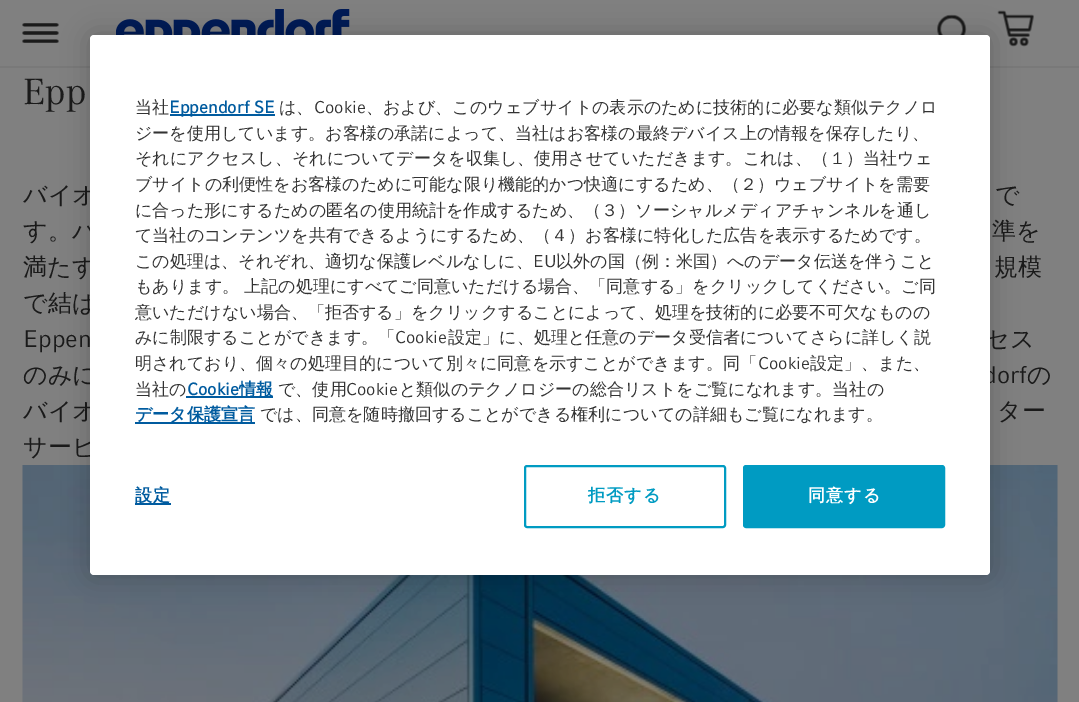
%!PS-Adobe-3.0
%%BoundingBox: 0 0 1079 702
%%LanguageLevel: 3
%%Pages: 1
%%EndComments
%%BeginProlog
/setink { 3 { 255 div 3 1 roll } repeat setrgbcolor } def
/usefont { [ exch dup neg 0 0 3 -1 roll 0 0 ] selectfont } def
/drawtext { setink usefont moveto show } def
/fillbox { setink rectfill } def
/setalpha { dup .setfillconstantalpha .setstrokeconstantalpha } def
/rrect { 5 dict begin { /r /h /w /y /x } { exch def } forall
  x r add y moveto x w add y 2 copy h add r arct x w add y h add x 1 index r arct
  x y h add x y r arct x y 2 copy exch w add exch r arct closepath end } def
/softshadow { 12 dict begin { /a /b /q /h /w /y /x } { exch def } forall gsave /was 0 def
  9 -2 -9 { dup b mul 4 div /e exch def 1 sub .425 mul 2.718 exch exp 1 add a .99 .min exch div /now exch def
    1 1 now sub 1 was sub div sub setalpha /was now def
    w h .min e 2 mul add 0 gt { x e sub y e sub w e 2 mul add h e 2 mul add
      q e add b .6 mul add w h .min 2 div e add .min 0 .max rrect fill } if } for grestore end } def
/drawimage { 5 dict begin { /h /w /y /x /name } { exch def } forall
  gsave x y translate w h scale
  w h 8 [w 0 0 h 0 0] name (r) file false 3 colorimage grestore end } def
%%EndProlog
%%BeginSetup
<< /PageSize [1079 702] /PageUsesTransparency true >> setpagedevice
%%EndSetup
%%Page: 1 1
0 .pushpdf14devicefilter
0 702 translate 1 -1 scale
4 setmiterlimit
0 0 1079 702 128 128 128 fillbox
0 66 1079 2 121 121 121 fillbox
(assets/img1.rgb) 22 23 37 20 drawimage
(assets/img2.rgb) 116 9 234 26 drawimage
(assets/img3.rgb) 937 14 30 21 drawimage
(assets/img4.rgb) 997 10 37 37 drawimage
(Epp) 23 104 /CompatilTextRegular-Regular 36 26 26 26 drawtext
(バイオ) 23 203 /WenQuanYiZenHei-Medium 24 26 26 26 drawtext
(で) 995 203 /WenQuanYiZenHei-Medium 24 26 26 26 drawtext
(す。バ) 23 239 /WenQuanYiZenHei-Medium 24 26 26 26 drawtext
(準を) 992 239 /WenQuanYiZenHei-Medium 24 26 26 26 drawtext
(満たす) 23 275 /WenQuanYiZenHei-Medium 24 26 26 26 drawtext
(規模) 994 275 /WenQuanYiZenHei-Medium 24 26 26 26 drawtext
(で結ば) 23 311 /WenQuanYiZenHei-Medium 24 26 26 26 drawtext
(Eppen) 23 347 /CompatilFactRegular-Regular 24 26 26 26 drawtext
(セス) 985 347 /WenQuanYiZenHei-Medium 24 26 26 26 drawtext
(のみに) 23 383 /WenQuanYiZenHei-Medium 24 26 26 26 drawtext
(dorf) 983 383 /CompatilFactRegular-Regular 24 26 26 26 drawtext
(の) 1027 383 /WenQuanYiZenHei-Medium 24 26 26 26 drawtext
(バイオ) 23 419 /WenQuanYiZenHei-Medium 24 26 26 26 drawtext
(ター) 997 419 /WenQuanYiZenHei-Medium 24 26 26 26 drawtext
(サービ) 23 455 /WenQuanYiZenHei-Medium 24 26 26 26 drawtext
(assets/img5.rgb) 22 465 1036 237 drawimage
0 0 0 setink
90 35 900 540 4 13.5 0.2 softshadow
255 255 255 setink
90 35 900 540 4 rrect fill
(当社) 135 113 /WenQuanYiZenHei-Medium 17.05 51 51 51 drawtext
170 114 105 2 0 91 159 fillbox
(Eppendorf SE) 169 113 /CompatilFactRegular-Bold 17.05 0 91 159 drawtext
(は、) 279 113 /WenQuanYiZenHei-Medium 17.05 51 51 51 drawtext
(Cookie) 314 113 /CompatilFactRegular-Regular 17.05 51 51 51 drawtext
(、および、このウェブサイトの表示のために技術的に必要な類似テクノロ) 366 113 /WenQuanYiZenHei-Medium 17.05 51 51 51 drawtext
(ジーを使用しています。お客様の承諾によって、当社はお客様の最終デバイス上の情報を保存したり、) 135 139 /WenQuanYiZenHei-Medium 17.05 51 51 51 drawtext
(それにアクセスし、それについてデータを収集し、使用させていただきます。これは、（１）当社ウェ) 135 164 /WenQuanYiZenHei-Medium 17.05 51 51 51 drawtext
(ブサイトの利便性をお客様のために可能な限り機能的かつ快適にするため、（２）ウェブサイトを需要) 135 190 /WenQuanYiZenHei-Medium 17.05 51 51 51 drawtext
(に合った形にするための匿名の使用統計を作成するため、（３）ソーシャルメディアチャンネルを通し) 135 216 /WenQuanYiZenHei-Medium 17.05 51 51 51 drawtext
(て当社のコンテンツを共有できるようにするため、（４）お客様に特化した広告を表示するためです。) 135 241 /WenQuanYiZenHei-Medium 17.05 51 51 51 drawtext
(この処理は、それぞれ、適切な保護レベルなしに、) 135 267 /WenQuanYiZenHei-Medium 17.05 51 51 51 drawtext
(EU) 533 267 /CompatilFactRegular-Regular 17.05 51 51 51 drawtext
(以外の国（例：米国）へのデータ伝送を伴うこと) 556 267 /WenQuanYiZenHei-Medium 17.05 51 51 51 drawtext
(もあります。) 135 292 /WenQuanYiZenHei-Medium 17.05 51 51 51 drawtext
(上記の処理にすべてご同意いただける場合、「同意する」をクリックしてください。ご同) 244 292 /WenQuanYiZenHei-Medium 17.05 51 51 51 drawtext
(意いただけない場合、「拒否する」をクリックすることによって、処理を技術的に必要不可欠なものの) 135 318 /WenQuanYiZenHei-Medium 17.05 51 51 51 drawtext
(みに制限することができます。「) 135 343 /WenQuanYiZenHei-Medium 17.05 51 51 51 drawtext
(Cookie) 395 343 /CompatilFactRegular-Regular 17.05 51 51 51 drawtext
(設定」に、処理と任意のデータ受信者についてさらに詳しく説) 448 343 /WenQuanYiZenHei-Medium 17.05 51 51 51 drawtext
(明されており、個々の処理目的について別々に同意を示すことができます。同「) 135 369 /WenQuanYiZenHei-Medium 17.05 51 51 51 drawtext
(Cookie) 758 369 /CompatilFactRegular-Regular 17.05 51 51 51 drawtext
(設定」、また、) 810 369 /WenQuanYiZenHei-Medium 17.05 51 51 51 drawtext
(当社の) 135 395 /WenQuanYiZenHei-Medium 17.05 51 51 51 drawtext
(Cookie) 187 395 /CompatilFactRegular-Bold 17.05 0 91 159 drawtext
186 396 87 2 0 91 159 fillbox
(情報) 239 395 /WenQuanYiZenHei-Bold 17.05 0 91 159 drawtext
(で、使用) 278 395 /WenQuanYiZenHei-Medium 17.05 51 51 51 drawtext
(Cookie) 346 395 /CompatilFactRegular-Regular 17.05 51 51 51 drawtext
(と類似のテクノロジーの総合リストをご覧になれます。当社の) 399 395 /WenQuanYiZenHei-Medium 17.05 51 51 51 drawtext
135 422 120 2 0 91 159 fillbox
(データ保護宣言) 135 420 /WenQuanYiZenHei-Bold 17.05 0 91 159 drawtext
(では、同意を随時撤回することができる権利についての詳細もご覧になれます。) 260 420 /WenQuanYiZenHei-Medium 17.05 51 51 51 drawtext
135 503 36 2 0 91 159 fillbox
/WenQuanYiZenHei-Bold 17.05 usefont
135 501 moveto 1 0 (設定) ashow
0 155 194 setink
2 setlinewidth
525 466 200 61 2 rrect stroke
588 501 moveto 1 0 (拒否する) ashow
744 466 200 61 2 rrect gsave fill grestore
stroke
255 255 255 setink
808 501 moveto 1 0 (同意する) ashow
.poppdf14devicefilter showpage
%%EOF
